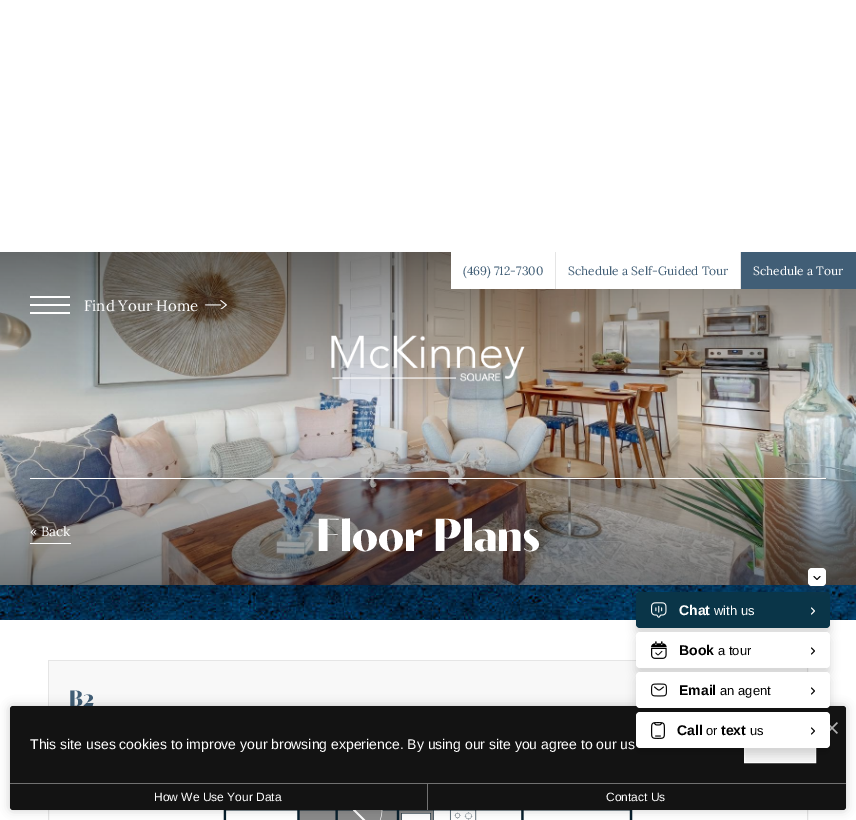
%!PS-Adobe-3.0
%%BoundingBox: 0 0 856 820
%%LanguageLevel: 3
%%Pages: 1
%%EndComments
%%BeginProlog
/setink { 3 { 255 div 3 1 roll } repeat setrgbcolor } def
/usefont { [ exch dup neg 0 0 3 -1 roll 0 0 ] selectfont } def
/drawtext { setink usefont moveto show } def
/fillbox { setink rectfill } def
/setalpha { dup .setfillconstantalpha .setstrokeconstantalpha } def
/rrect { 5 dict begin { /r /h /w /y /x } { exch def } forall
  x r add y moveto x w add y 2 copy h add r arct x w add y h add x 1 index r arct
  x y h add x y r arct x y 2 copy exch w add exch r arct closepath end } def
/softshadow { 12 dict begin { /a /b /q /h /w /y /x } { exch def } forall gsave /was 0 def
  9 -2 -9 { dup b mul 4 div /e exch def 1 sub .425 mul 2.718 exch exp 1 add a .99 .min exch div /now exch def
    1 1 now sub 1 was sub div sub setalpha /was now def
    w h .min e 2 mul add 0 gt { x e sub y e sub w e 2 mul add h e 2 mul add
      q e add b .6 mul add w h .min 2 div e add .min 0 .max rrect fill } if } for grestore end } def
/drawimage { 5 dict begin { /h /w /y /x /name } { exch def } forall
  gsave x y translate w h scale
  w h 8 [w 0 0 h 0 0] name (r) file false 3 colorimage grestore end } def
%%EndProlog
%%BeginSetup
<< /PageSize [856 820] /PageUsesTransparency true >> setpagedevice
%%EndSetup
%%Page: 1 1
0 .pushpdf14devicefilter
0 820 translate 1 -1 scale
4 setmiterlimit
0 0 856 820 255 255 255 fillbox
(assets/img3.rgb) 0 252 856 333 drawimage
451 252 104 37 255 255 255 fillbox
555 252 1 37 229 229 229 fillbox
(\(469\) 712-7300) 463 275 /Lora-Regular 12 65 94 118 drawtext
556 252 184 37 255 255 255 fillbox
740 252 1 37 229 229 229 fillbox
(Schedule a Self-Guided Tour) 568 275 /Lora-Regular 12 65 94 118 drawtext
741 252 115 37 65 94 118 fillbox
(Schedule a Tour) 753 275 /Lora-Regular 12 255 255 255 drawtext
30 296 40 2 255 255 255 fillbox
30 304 40 2 255 255 255 fillbox
30 312 40 2 255 255 255 fillbox
(Find Your Home) 84 311 /Lora-Regular 15 255 255 255 drawtext
(assets/img1.rgb) 205 300 22 9 drawimage
(assets/img2.rgb) 331 335 194 47 drawimage
30 478 796 1 255 255 255 fillbox
30 543 41 1 255 255 255 fillbox
(« Back) 30 536 /Lora-Regular 13.5 255 255 255 drawtext
(Floor Plans) 316 551 /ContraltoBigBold-Bold 46 255 255 255 drawtext
(assets/img4.rgb) 0 585 856 35 drawimage
229 229 229 setink
48.5 660.5 759 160 rectstroke
49 661 758 45 248 248 248 fillbox
(B2) 69 706 /ContraltoBigBold-Bold 22 65 94 118 drawtext
(assets/img5.rgb) 223 810 410 10 drawimage
0 0 0 setink
10 706 836 104 3 5 0.2 softshadow
19 19 19 setink
10 706 836 104 3 rrect fill
(assets/img6.rgb) 830 722 8 12 drawimage
(This site uses cookies to improve your browsing experience. By using our site you agree to our us) 30 749 /LiberationSans-Regular 14 255 255 255 drawtext
745 748 70 14 245 245 245 fillbox
255 255 255 setink
744.5 726.5 71 36 rectstroke
10 783 836 1 113 113 113 fillbox
427 784 1 26 113 113 113 fillbox
(How We Use Your Data) 154 801 /LiberationSans-Regular 12 255 255 255 drawtext
(Contact Us) 606 801 /LiberationSans-Regular 12 255 255 255 drawtext
0 0 0 setink
636 598 194 36 4 5 0.15 softshadow
10 53 72 setink
636 592 194 36 4 rrect fill
99 99 99 setink
808 570 18 18 4 4 0.2 softshadow
255 255 255 setink
808 568 18 18 4 rrect fill
0 0 0 setink
1 setlinecap
1 setlinejoin
814 576.5 moveto 817 579.5 lineto 820 576.5 lineto stroke
(assets/img7.rgb) 651 602 16 16 drawimage
(Chat) 679 615 /LiberationSans-Bold 14 255 255 255 drawtext
(with us) 714 615 /LiberationSans-Regular 13 255 255 255 drawtext
811.5 614 moveto 814.5 611 lineto 811.5 608 lineto stroke
0 0 0 setink
636 638 194 36 4 5 0.15 softshadow
255 255 255 setink
636 632 194 36 4 rrect fill
(assets/img8.rgb) 651 641 16 18 drawimage
(Book) 679 655 /LiberationSans-Bold 14 0 0 0 drawtext
(a tour) 718 655 /LiberationSans-Regular 13 0 0 0 drawtext
811.5 654 moveto 814.5 651 lineto 811.5 648 lineto stroke
636 678 194 36 4 5 0.15 softshadow
255 255 255 setink
636 672 194 36 4 rrect fill
(assets/img9.rgb) 651 683 16 14 drawimage
(Email) 679 695 /LiberationSans-Bold 14 0 0 0 drawtext
(an agent) 720 695 /LiberationSans-Regular 13 0 0 0 drawtext
811.5 694 moveto 814.5 691 lineto 811.5 688 lineto stroke
636 718 194 36 4 5 0.15 softshadow
255 255 255 setink
636 712 194 36 4 rrect fill
(assets/img10.rgb) 651 722 14 17 drawimage
(Call) 677 735 /LiberationSans-Bold 14 0 0 0 drawtext
(or) 706 735 /LiberationSans-Regular 13 0 0 0 drawtext
(text) 721 735 /LiberationSans-Bold 14 0 0 0 drawtext
(us) 750 735 /LiberationSans-Regular 13 0 0 0 drawtext
811.5 734 moveto 814.5 731 lineto 811.5 728 lineto stroke
.poppdf14devicefilter showpage
%%EOF
